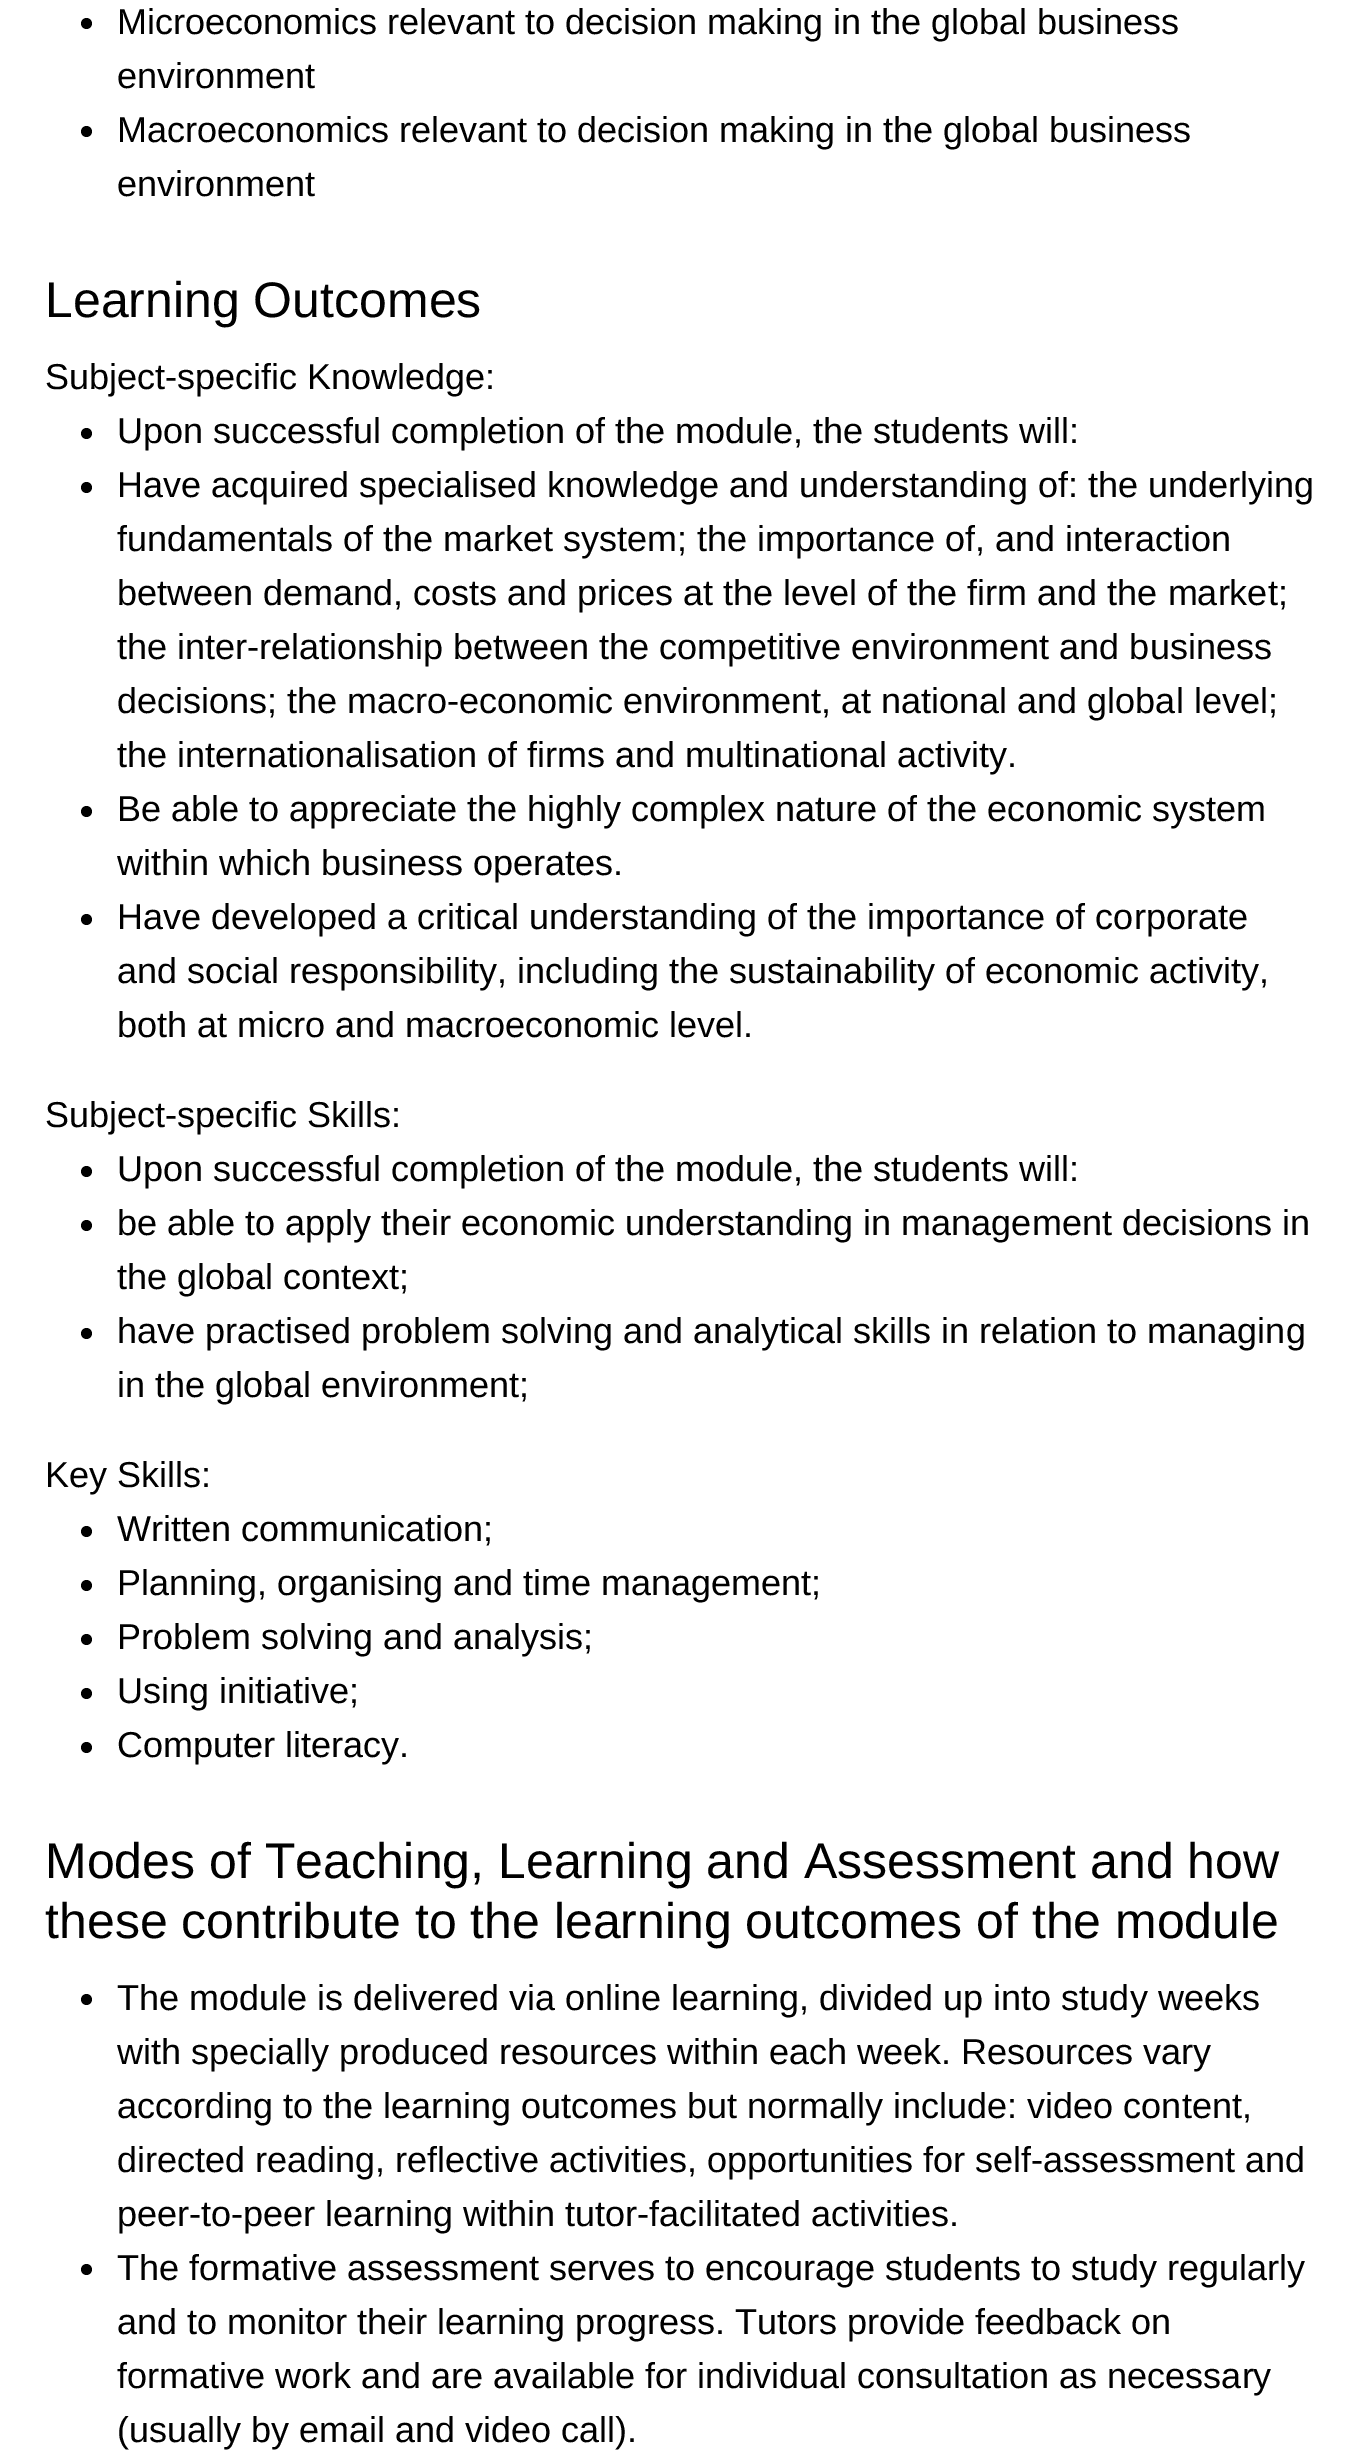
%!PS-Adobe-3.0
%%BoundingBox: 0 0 1360 2460
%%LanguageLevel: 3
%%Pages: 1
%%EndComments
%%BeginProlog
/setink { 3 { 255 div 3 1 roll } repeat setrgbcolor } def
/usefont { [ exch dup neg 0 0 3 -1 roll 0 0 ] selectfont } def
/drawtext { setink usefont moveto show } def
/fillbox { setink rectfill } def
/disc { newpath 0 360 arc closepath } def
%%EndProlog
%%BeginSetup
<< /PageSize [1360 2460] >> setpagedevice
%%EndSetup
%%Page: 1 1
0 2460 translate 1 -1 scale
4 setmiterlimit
0 0 1360 2460 255 255 255 fillbox
0 0 0 setink
86.5 23.5 5.5 disc fill
(Microeconomics relevant to decision making in the global business) 117 34 /LiberationSans-Regular 36 0 0 0 drawtext
(environment) 117 88 /LiberationSans-Regular 36 0 0 0 drawtext
86.5 131.5 5.5 disc fill
(Macroeconomics relevant to decision making in the global business) 117 142 /LiberationSans-Regular 36 0 0 0 drawtext
(environment) 117 196 /LiberationSans-Regular 36 0 0 0 drawtext
(Learning Outcomes) 45 317 /LiberationSans-Regular 50 0 0 0 drawtext
(Subject-specific Knowledge:) 45 389 /LiberationSans-Regular 36 0 0 0 drawtext
86.5 433.5 5.5 disc fill
(Upon successful completion of the module, the students will:) 117 443 /LiberationSans-Regular 36 0 0 0 drawtext
86.5 487.5 5.5 disc fill
(Have acquired specialised knowledge and understanding of: the underlying) 117 497 /LiberationSans-Regular 36 0 0 0 drawtext
(fundamentals of the market system; the importance of, and interaction) 117 551 /LiberationSans-Regular 36 0 0 0 drawtext
(between demand, costs and prices at the level of the firm and the market;) 117 605 /LiberationSans-Regular 36 0 0 0 drawtext
(the inter-relationship between the competitive environment and business) 117 659 /LiberationSans-Regular 36 0 0 0 drawtext
(decisions; the macro-economic environment, at national and global level;) 117 713 /LiberationSans-Regular 36 0 0 0 drawtext
(the internationalisation of firms and multinational activity.) 117 767 /LiberationSans-Regular 36 0 0 0 drawtext
86.5 811.5 5.5 disc fill
(Be able to appreciate the highly complex nature of the economic system) 117 821 /LiberationSans-Regular 36 0 0 0 drawtext
(within which business operates.) 117 875 /LiberationSans-Regular 36 0 0 0 drawtext
86.5 919.5 5.5 disc fill
(Have developed a critical understanding of the importance of corporate) 117 929 /LiberationSans-Regular 36 0 0 0 drawtext
(and social responsibility, including the sustainability of economic activity,) 117 983 /LiberationSans-Regular 36 0 0 0 drawtext
(both at micro and macroeconomic level.) 117 1037 /LiberationSans-Regular 36 0 0 0 drawtext
(Subject-specific Skills:) 45 1127 /LiberationSans-Regular 36 0 0 0 drawtext
86.5 1171.5 5.5 disc fill
(Upon successful completion of the module, the students will:) 117 1181 /LiberationSans-Regular 36 0 0 0 drawtext
86.5 1225.5 5.5 disc fill
(be able to apply their economic understanding in management decisions in) 117 1235 /LiberationSans-Regular 36 0 0 0 drawtext
(the global context;) 117 1289 /LiberationSans-Regular 36 0 0 0 drawtext
86.5 1333.5 5.5 disc fill
(have practised problem solving and analytical skills in relation to managing) 117 1343 /LiberationSans-Regular 36 0 0 0 drawtext
(in the global environment;) 117 1397 /LiberationSans-Regular 36 0 0 0 drawtext
(Key Skills:) 45 1487 /LiberationSans-Regular 36 0 0 0 drawtext
86.5 1531.5 5.5 disc fill
(Written communication;) 117 1541 /LiberationSans-Regular 36 0 0 0 drawtext
86.5 1585.5 5.5 disc fill
(Planning, organising and time management;) 117 1595 /LiberationSans-Regular 36 0 0 0 drawtext
86.5 1639.5 5.5 disc fill
(Problem solving and analysis;) 117 1649 /LiberationSans-Regular 36 0 0 0 drawtext
86.5 1693.5 5.5 disc fill
(Using initiative;) 117 1703 /LiberationSans-Regular 36 0 0 0 drawtext
86.5 1747.5 5.5 disc fill
(Computer literacy.) 117 1757 /LiberationSans-Regular 36 0 0 0 drawtext
(Modes of Teaching, Learning and Assessment and how) 45 1878 /LiberationSans-Regular 50 0 0 0 drawtext
(these contribute to the learning outcomes of the module) 45 1938 /LiberationSans-Regular 50 0 0 0 drawtext
86.5 1999.5 5.5 disc fill
(The module is delivered via online learning, divided up into study weeks) 117 2010 /LiberationSans-Regular 36 0 0 0 drawtext
(with specially produced resources within each week. Resources vary) 117 2064 /LiberationSans-Regular 36 0 0 0 drawtext
(according to the learning outcomes but normally include: video content,) 117 2118 /LiberationSans-Regular 36 0 0 0 drawtext
(directed reading, reflective activities, opportunities for self-assessment and) 117 2172 /LiberationSans-Regular 36 0 0 0 drawtext
(peer-to-peer learning within tutor-facilitated activities.) 117 2226 /LiberationSans-Regular 36 0 0 0 drawtext
86.5 2269.5 5.5 disc fill
(The formative assessment serves to encourage students to study regularly) 117 2280 /LiberationSans-Regular 36 0 0 0 drawtext
(and to monitor their learning progress. Tutors provide feedback on) 117 2334 /LiberationSans-Regular 36 0 0 0 drawtext
(formative work and are available for individual consultation as necessary) 117 2388 /LiberationSans-Regular 36 0 0 0 drawtext
(\(usually by email and video call\).) 117 2442 /LiberationSans-Regular 36 0 0 0 drawtext
showpage
%%EOF
